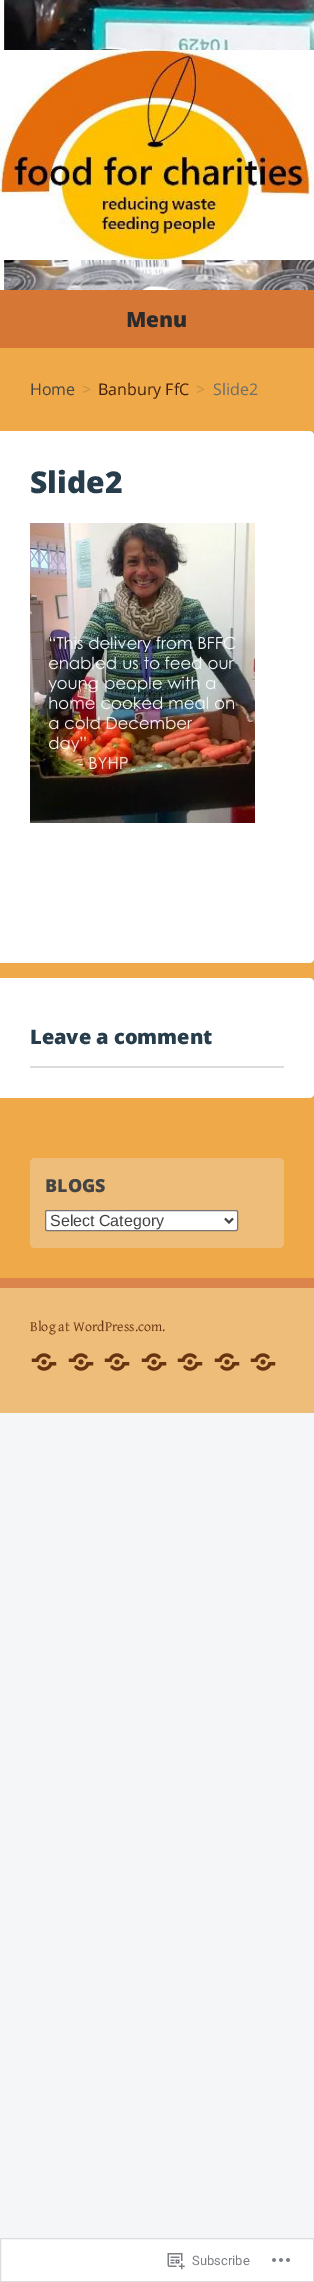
%!PS-Adobe-3.0
%%BoundingBox: 0 0 314 2282
%%LanguageLevel: 3
%%Pages: 1
%%EndComments
%%BeginProlog
/setink { 3 { 255 div 3 1 roll } repeat setrgbcolor } def
/usefont { [ exch dup neg 0 0 3 -1 roll 0 0 ] selectfont } def
/drawtext { setink usefont moveto show } def
/fillbox { setink rectfill } def
/rrect { 5 dict begin { /r /h /w /y /x } { exch def } forall
  x r add y moveto x w add y 2 copy h add r arct x w add y h add x 1 index r arct
  x y h add x y r arct x y 2 copy exch w add exch r arct closepath end } def
/drawimage { 5 dict begin { /h /w /y /x /name } { exch def } forall
  gsave x y translate w h scale
  w h 8 [w 0 0 h 0 0] name (r) file false 3 colorimage grestore end } def
%%EndProlog
%%BeginSetup
<< /PageSize [314 2282] >> setpagedevice
%%EndSetup
%%Page: 1 1
0 2282 translate 1 -1 scale
4 setmiterlimit
0 0 314 2282 245 246 247 fillbox
0 348 314 930 239 169 72 fillbox
(assets/img1.rgb) 0 0 314 290 drawimage
(assets/img2.rgb) 0 50 314 210 drawimage
0 290 314 58 215 119 54 fillbox
(Menu) 126 327 /OpenSans-ExtraBold 21 43 43 43 drawtext
(Home) 30 395 /OpenSans-Regular 16 68 68 68 drawtext
(>) 82 395 /OpenSans-Regular 16 199 143 66 drawtext
(Banbury FfC) 98 395 /OpenSans-Regular 16 70 33 10 drawtext
(>) 196 395 /OpenSans-Regular 16 199 143 66 drawtext
(Slide2) 213 395 /OpenSans-Regular 16 109 109 109 drawtext
255 255 255 setink
0 431 moveto 309 431 lineto 312 431 314 433 314 436 curveto 314 958 lineto 314 961 312 963 309 963 curveto 0 963 lineto closepath fill
(Slide2) 30 493 /OpenSans-ExtraBold 30 40 61 75 drawtext
(assets/img3.rgb) 30 523 225 300 drawimage
255 255 255 setink
0 978 moveto 309 978 lineto 312 978 314 980 314 983 curveto 314 1093 lineto 314 1096 312 1098 309 1098 curveto 0 1098 lineto closepath fill
(Leave a comment) 30 1044 /OpenSans-ExtraBold 20 40 61 75 drawtext
30 1066 254 2 220 220 222 fillbox
238 189 122 setink
30 1158 254 90 5 rrect fill
(BLOGS) 45 1192 /OpenSans-ExtraBold 18 68 68 68 drawtext
255 255 255 setink
45.5 1210.5 192 20 1.5 rrect gsave fill grestore
118 118 118 setink
stroke
68 68 68 setink
2 setlinewidth
225 1218.5 moveto 229 1222.5 lineto 233 1218.5 lineto stroke
(Select Category) 50 1226 /LiberationSans-Regular 16 68 68 68 drawtext
0 1288 314 125 238 189 122 fillbox
0 1278 314 10 219 133 76 fillbox
(Blog at WordPress.com.) 30 1331 /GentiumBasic-Regular 14 103 52 18 drawtext
(assets/img4.rgb) 31 1353 26 18 drawimage
(assets/img4.rgb) 68 1353 26 18 drawimage
(assets/img4.rgb) 104 1353 26 18 drawimage
(assets/img4.rgb) 141 1353 26 18 drawimage
(assets/img4.rgb) 177 1353 26 18 drawimage
(assets/img4.rgb) 214 1353 26 18 drawimage
(assets/img4.rgb) 250 1353 26 18 drawimage
255 255 255 setink
0.5 2238.5 moveto 313.5 2238.5 lineto 313.5 2281.5 lineto 0.5 2281.5 lineto closepath gsave fill grestore
221 221 223 setink
1 setlinewidth
stroke
(assets/img5.rgb) 167 2253 18 17 drawimage
(Subscribe) 192 2265 /Roboto-Regular 13 123 126 132 drawtext
(assets/img6.rgb) 272 2258 18 4 drawimage
showpage
%%EOF
